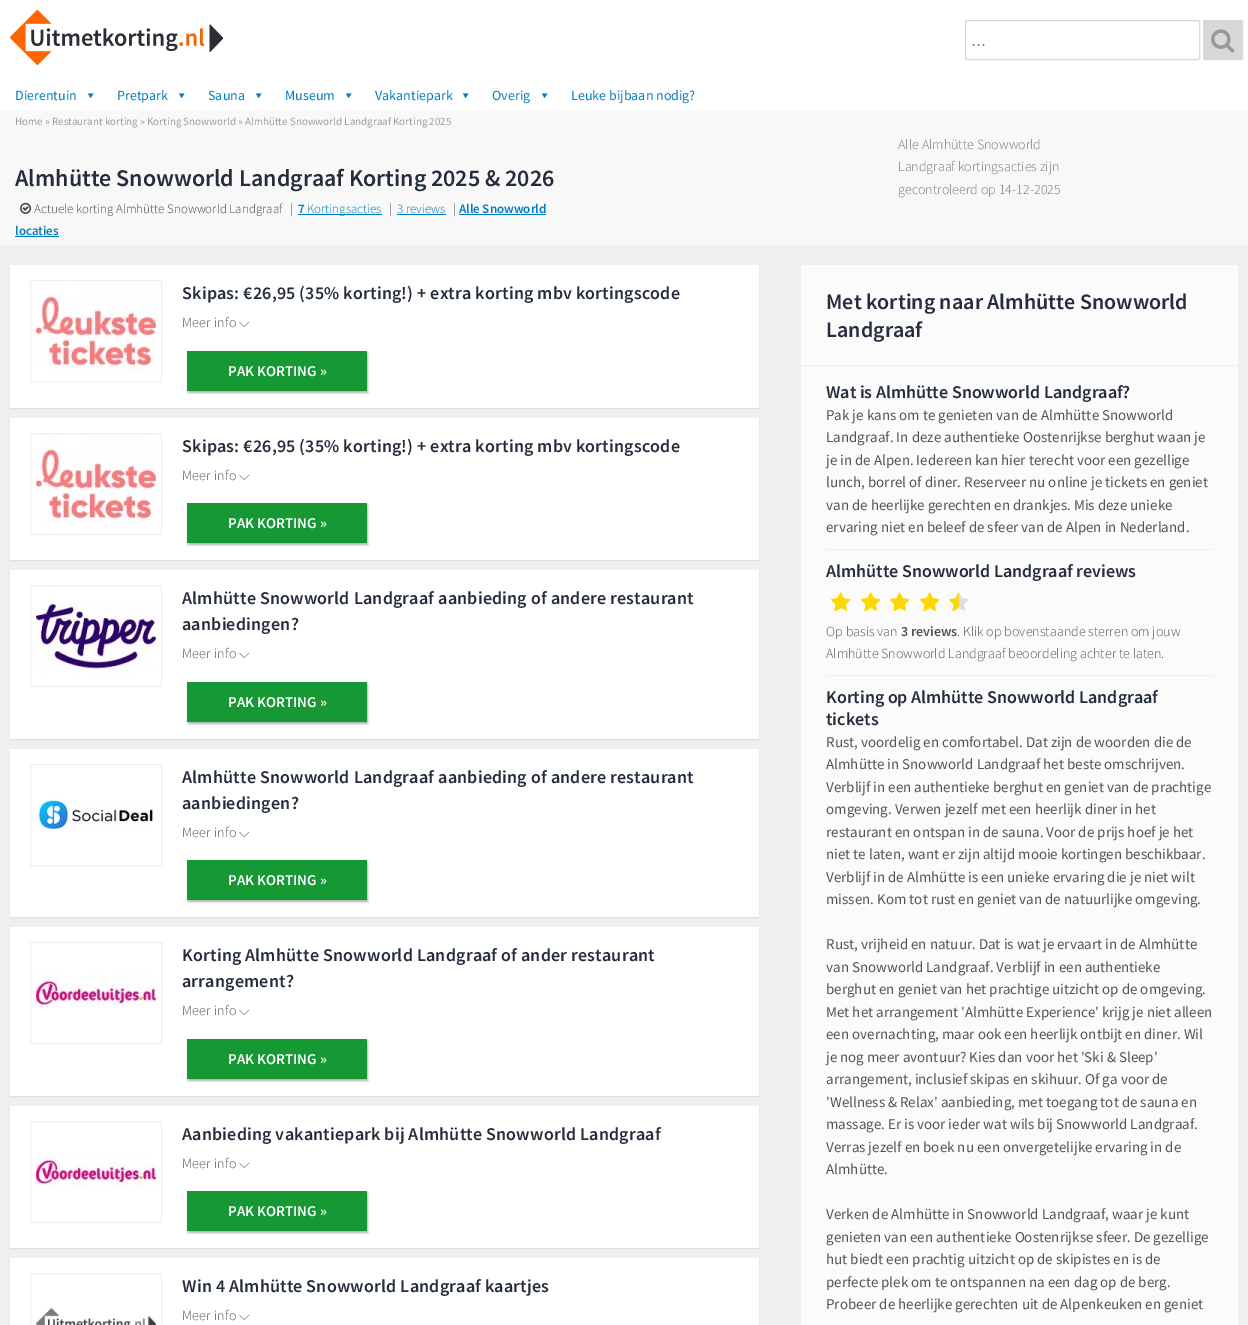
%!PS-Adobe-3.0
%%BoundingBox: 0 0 1248 1325
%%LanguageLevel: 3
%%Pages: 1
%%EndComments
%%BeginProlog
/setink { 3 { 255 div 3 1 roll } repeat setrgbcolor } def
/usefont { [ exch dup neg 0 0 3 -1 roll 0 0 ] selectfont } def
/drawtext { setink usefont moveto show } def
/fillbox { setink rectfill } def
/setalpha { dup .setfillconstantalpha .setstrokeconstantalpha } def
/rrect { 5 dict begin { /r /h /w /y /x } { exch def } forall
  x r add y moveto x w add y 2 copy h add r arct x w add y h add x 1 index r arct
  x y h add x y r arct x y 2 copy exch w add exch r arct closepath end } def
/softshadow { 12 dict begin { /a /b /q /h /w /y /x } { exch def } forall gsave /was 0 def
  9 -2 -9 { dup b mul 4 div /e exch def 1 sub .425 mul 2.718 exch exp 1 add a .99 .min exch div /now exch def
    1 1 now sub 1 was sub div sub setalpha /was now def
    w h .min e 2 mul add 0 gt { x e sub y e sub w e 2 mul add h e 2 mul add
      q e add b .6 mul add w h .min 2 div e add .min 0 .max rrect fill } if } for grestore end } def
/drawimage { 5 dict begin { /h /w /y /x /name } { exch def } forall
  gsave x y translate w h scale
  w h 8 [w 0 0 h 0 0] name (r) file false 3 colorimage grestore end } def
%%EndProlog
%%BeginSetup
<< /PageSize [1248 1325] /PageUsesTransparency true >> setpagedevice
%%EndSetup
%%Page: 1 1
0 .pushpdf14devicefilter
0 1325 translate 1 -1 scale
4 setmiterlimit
0 0 1248 1325 239 239 239 fillbox
0 0 1248 110 255 255 255 fillbox
(assets/img1.rgb) 10 10 213 55 drawimage
216 216 216 setink
965.5 20.5 234 39 1.5 rrect stroke
(...) 971 46 /LiberationSans-Regular 18 119 119 119 drawtext
216 216 216 setink
1203.5 20.5 39 39 1.5 rrect gsave fill grestore
stroke
(assets/img2.rgb) 1211 29 24 24 drawimage
(Dierentuin) 15 100 /SourceSansPro-Regular 14 0 125 189 drawtext
93.5 93.5 moveto 90.5 98 lineto 88 93.5 lineto closepath fill
(Pretpark) 117 100 /SourceSansPro-Regular 14 0 125 189 drawtext
184.5 93.5 moveto 181.5 98 lineto 179 93.5 lineto closepath fill
(Sauna) 208 100 /SourceSansPro-Regular 14 0 125 189 drawtext
261.5 93.5 moveto 258.5 98 lineto 256 93.5 lineto closepath fill
(Museum) 285 100 /SourceSansPro-Regular 14 0 125 189 drawtext
351.5 93.5 moveto 348.5 98 lineto 346 93.5 lineto closepath fill
(Vakantiepark) 375 100 /SourceSansPro-Regular 14 0 125 189 drawtext
468.5 93.5 moveto 465.5 98 lineto 463 93.5 lineto closepath fill
(Overig) 492 100 /SourceSansPro-Regular 14 0 125 189 drawtext
547.5 93.5 moveto 544.5 98 lineto 542 93.5 lineto closepath fill
(Leuke bijbaan nodig?) 571 100 /SourceSansPro-Regular 14 0 125 189 drawtext
0 110 1248 135 248 248 248 fillbox
(Home » Restaurant korting » Korting Snowworld » Almhütte Snowworld Landgraaf Korting 2025) 15 125 /SourceSansPro-Regular 11 158 158 158 drawtext
(Almhütte Snowworld Landgraaf Korting 2025 & 2026) 15 186 /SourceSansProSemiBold-SemiBold 24 37 45 61 drawtext
(assets/img3.rgb) 20 202 12 12 drawimage
(Actuele korting Almhütte Snowworld Landgraaf) 34 213 /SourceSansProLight-Light 13 74 74 74 drawtext
(|) 290 213 /SourceSansProLight-Light 13 74 74 74 drawtext
(7) 298 213 /SourceSansProSemiBold-SemiBold 13 0 125 189 drawtext
298 214 84 1 0 125 189 fillbox
(Kortingsacties) 307 213 /SourceSansProLight-Light 13 0 125 189 drawtext
(|) 389 213 /SourceSansProLight-Light 13 74 74 74 drawtext
(3 reviews) 397 213 /SourceSansProLight-Light 13 0 125 189 drawtext
397 214 49 1 0 125 189 fillbox
(|) 453 213 /SourceSansProLight-Light 13 74 74 74 drawtext
(Alle Snowworld) 459 213 /SourceSansProSemiBold-SemiBold 13 0 125 189 drawtext
459 214 87 1 0 125 189 fillbox
(locaties) 15 235 /SourceSansProSemiBold-SemiBold 13 0 125 189 drawtext
15 236 44 1 0 125 189 fillbox
(Alle Almhütte Snowworld) 898 149 /SourceSansProLight-Light 14 119 119 119 drawtext
(Landgraaf kortingsacties zijn) 898 171 /SourceSansProLight-Light 14 119 119 119 drawtext
(gecontroleerd op 14-12-2025) 898 194 /SourceSansProLight-Light 14 119 119 119 drawtext
220 220 220 setink
10 266 749 143 0 0.5 1 softshadow
10 265 749 143 255 255 255 fillbox
239 239 239 setink
30.5 280.5 131 101 1.5 rrect stroke
(assets/img4.rgb) 36 286 120 84 drawimage
/SourceSansProSemiBold-SemiBold 18 usefont
37 45 61 setink
182 299 moveto 0.2 0 (Skipas: €26,95 \(35% korting!\) + extra korting mbv kortingscode) ashow
/SourceSansProLight-Light 14 usefont
84 84 84 setink
182 327 moveto 0.2 0 (Meer info) ashow
/FreeSerif-Regular 14 usefont
239 327 moveto 0.2 0 (⌵) ashow
0 0 0 setink
188 353 180 40 0 1 0.3 softshadow
187 351 180 40 22 152 53 fillbox
(PAK KORTING ») 228 376 /SourceSansProSemiBold-SemiBold 15 255 255 255 drawtext
220 220 220 setink
10 419 749 142 0 0.5 1 softshadow
10 418 749 142 255 255 255 fillbox
239 239 239 setink
30.5 433.5 131 101 1.5 rrect stroke
(assets/img4.rgb) 36 439 120 84 drawimage
/SourceSansProSemiBold-SemiBold 18 usefont
37 45 61 setink
182 452 moveto 0.2 0 (Skipas: €26,95 \(35% korting!\) + extra korting mbv kortingscode) ashow
/SourceSansProLight-Light 14 usefont
84 84 84 setink
182 480 moveto 0.2 0 (Meer info) ashow
/FreeSerif-Regular 14 usefont
239 480 moveto 0.2 0 (⌵) ashow
0 0 0 setink
188 505 180 40 0 1 0.3 softshadow
187 503 180 40 22 152 53 fillbox
(PAK KORTING ») 228 528 /SourceSansProSemiBold-SemiBold 15 255 255 255 drawtext
220 220 220 setink
10 571 749 169 0 0.5 1 softshadow
10 570 749 169 255 255 255 fillbox
239 239 239 setink
30.5 585.5 131 101 1.5 rrect stroke
(assets/img5.rgb) 36 603 120 72 drawimage
/SourceSansProSemiBold-SemiBold 18 usefont
37 45 61 setink
182 604 moveto 0.2 0 (Almhütte Snowworld Landgraaf aanbieding of andere restaurant) ashow
182 630 moveto 0.2 0 (aanbiedingen?) ashow
/SourceSansProLight-Light 14 usefont
84 84 84 setink
182 658 moveto 0.2 0 (Meer info) ashow
/FreeSerif-Regular 14 usefont
239 658 moveto 0.2 0 (⌵) ashow
0 0 0 setink
188 684 180 40 0 1 0.3 softshadow
187 682 180 40 22 152 53 fillbox
(PAK KORTING ») 228 707 /SourceSansProSemiBold-SemiBold 15 255 255 255 drawtext
220 220 220 setink
10 750 749 168 0 0.5 1 softshadow
10 749 749 168 255 255 255 fillbox
239 239 239 setink
30.5 764.5 131 101 1.5 rrect stroke
(assets/img6.rgb) 37 799 116 32 drawimage
/SourceSansProSemiBold-SemiBold 18 usefont
37 45 61 setink
182 783 moveto 0.2 0 (Almhütte Snowworld Landgraaf aanbieding of andere restaurant) ashow
182 809 moveto 0.2 0 (aanbiedingen?) ashow
/SourceSansProLight-Light 14 usefont
84 84 84 setink
182 837 moveto 0.2 0 (Meer info) ashow
/FreeSerif-Regular 14 usefont
239 837 moveto 0.2 0 (⌵) ashow
0 0 0 setink
188 862 180 40 0 1 0.3 softshadow
187 860 180 40 22 152 53 fillbox
(PAK KORTING ») 228 885 /SourceSansProSemiBold-SemiBold 15 255 255 255 drawtext
220 220 220 setink
10 928 749 169 0 0.5 1 softshadow
10 927 749 169 255 255 255 fillbox
239 239 239 setink
30.5 942.5 131 101 1.5 rrect stroke
(assets/img7.rgb) 36 972 120 37 drawimage
/SourceSansProSemiBold-SemiBold 18 usefont
37 45 61 setink
182 961 moveto 0.2 0 (Korting Almhütte Snowworld Landgraaf of ander restaurant) ashow
182 987 moveto 0.2 0 (arrangement?) ashow
/SourceSansProLight-Light 14 usefont
84 84 84 setink
182 1015 moveto 0.2 0 (Meer info) ashow
/FreeSerif-Regular 14 usefont
239 1015 moveto 0.2 0 (⌵) ashow
0 0 0 setink
188 1041 180 40 0 1 0.3 softshadow
187 1039 180 40 22 152 53 fillbox
(PAK KORTING ») 228 1064 /SourceSansProSemiBold-SemiBold 15 255 255 255 drawtext
220 220 220 setink
10 1107 749 142 0 0.5 1 softshadow
10 1106 749 142 255 255 255 fillbox
239 239 239 setink
30.5 1121.5 131 101 1.5 rrect stroke
(assets/img7.rgb) 36 1151 120 37 drawimage
/SourceSansProSemiBold-SemiBold 18 usefont
37 45 61 setink
182 1140 moveto 0.2 0 (Aanbieding vakantiepark bij Almhütte Snowworld Landgraaf) ashow
/SourceSansProLight-Light 14 usefont
84 84 84 setink
182 1168 moveto 0.2 0 (Meer info) ashow
/FreeSerif-Regular 14 usefont
239 1168 moveto 0.2 0 (⌵) ashow
0 0 0 setink
188 1193 180 40 0 1 0.3 softshadow
187 1191 180 40 22 152 53 fillbox
(PAK KORTING ») 228 1216 /SourceSansProSemiBold-SemiBold 15 255 255 255 drawtext
220 220 220 setink
10 1259 749 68 0 0.5 1 softshadow
10 1258 749 67 255 255 255 fillbox
239 239 239 setink
30.5 1273.5 131 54 1.5 rrect stroke
(assets/img8.rgb) 36 1308 120 17 drawimage
/SourceSansProSemiBold-SemiBold 18 usefont
37 45 61 setink
182 1292 moveto 0.2 0 (Win 4 Almhütte Snowworld Landgraaf kaartjes) ashow
/SourceSansProLight-Light 14 usefont
84 84 84 setink
182 1320 moveto 0.2 0 (Meer info) ashow
/FreeSerif-Regular 14 usefont
239 1320 moveto 0.2 0 (⌵) ashow
251 251 251 setink
801 265 437 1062 2 rrect fill
801 365 437 1 239 239 239 fillbox
(Met korting naar Almhütte Snowworld) 826 309 /SourceSansProSemiBold-SemiBold 22 37 45 61 drawtext
(Landgraaf) 826 337 /SourceSansProSemiBold-SemiBold 22 37 45 61 drawtext
826 549 387 1 239 239 239 fillbox
(Wat is Almhütte Snowworld Landgraaf?) 826 398 /SourceSansProSemiBold-SemiBold 18 37 45 61 drawtext
(Pak je kans om te genieten van de Almhütte Snowworld) 826 420 /SourceSansPro-Regular 15 84 84 84 drawtext
(Landgraaf. In deze authentieke Oostenrijkse berghut waan je) 826 442 /SourceSansPro-Regular 15 84 84 84 drawtext
(je in de Alpen. Iedereen kan hier terecht voor een gezellige) 826 465 /SourceSansPro-Regular 15 84 84 84 drawtext
(lunch, borrel of diner. Reserveer nu online je tickets en geniet) 826 487 /SourceSansPro-Regular 15 84 84 84 drawtext
(van de heerlijke gerechten en drankjes. Mis deze unieke) 826 510 /SourceSansPro-Regular 15 84 84 84 drawtext
(ervaring niet en beleef de sfeer van de Alpen in Nederland.) 826 532 /SourceSansPro-Regular 15 84 84 84 drawtext
826 675 387 1 239 239 239 fillbox
(Almhütte Snowworld Landgraaf reviews) 826 577 /SourceSansProSemiBold-SemiBold 18 37 45 61 drawtext
(assets/img9.rgb) 831 592 20 19 drawimage
(assets/img10.rgb) 831 592 10 19 drawimage
(assets/img9.rgb) 861 592 20 19 drawimage
(assets/img10.rgb) 861 592 10 19 drawimage
(assets/img9.rgb) 890 592 20 19 drawimage
(assets/img10.rgb) 890 592 10 19 drawimage
(assets/img9.rgb) 920 592 20 19 drawimage
(assets/img10.rgb) 920 592 10 19 drawimage
(assets/img11.rgb) 949 592 20 19 drawimage
(assets/img12.rgb) 949 592 10 19 drawimage
(Op basis van) 826 636 /SourceSansProLight-Light 14 84 84 84 drawtext
(3 reviews) 901 636 /SourceSansProSemiBold-SemiBold 14 84 84 84 drawtext
(. Klik op bovenstaande sterren om jouw) 957 636 /SourceSansProLight-Light 14 84 84 84 drawtext
(Almhütte Snowworld Landgraaf beoordeling achter te laten.) 826 658 /SourceSansProLight-Light 14 84 84 84 drawtext
(Korting op Almhütte Snowworld Landgraaf) 826 703 /SourceSansProSemiBold-SemiBold 18 37 45 61 drawtext
(tickets) 826 725 /SourceSansProSemiBold-SemiBold 18 37 45 61 drawtext
(Rust, voordelig en comfortabel. Dat zijn de woorden die de) 826 747 /SourceSansPro-Regular 15 84 84 84 drawtext
(Almhütte in Snowworld Landgraaf het beste omschrijven.) 826 769 /SourceSansPro-Regular 15 84 84 84 drawtext
(Verblijf in een authentieke berghut en geniet van de prachtige) 826 792 /SourceSansPro-Regular 15 84 84 84 drawtext
(omgeving. Verwen jezelf met een heerlijk diner in het) 826 814 /SourceSansPro-Regular 15 84 84 84 drawtext
(restaurant en ontspan in de sauna. Voor de prijs hoef je het) 826 837 /SourceSansPro-Regular 15 84 84 84 drawtext
(niet te laten, want er zijn altijd mooie kortingen beschikbaar.) 826 859 /SourceSansPro-Regular 15 84 84 84 drawtext
(Verblijf in de Almhütte is een unieke ervaring die je niet wilt) 826 882 /SourceSansPro-Regular 15 84 84 84 drawtext
(missen. Kom tot rust en geniet van de natuurlijke omgeving.) 826 904 /SourceSansPro-Regular 15 84 84 84 drawtext
(Rust, vrijheid en natuur. Dat is wat je ervaart in de Almhütte) 826 949 /SourceSansPro-Regular 15 84 84 84 drawtext
(van Snowworld Landgraaf. Verblijf in een authentieke) 826 972 /SourceSansPro-Regular 15 84 84 84 drawtext
(berghut en geniet van het prachtige uitzicht op de omgeving.) 826 994 /SourceSansPro-Regular 15 84 84 84 drawtext
(Met het arrangement 'Almhütte Experience' krijg je niet alleen) 826 1017 /SourceSansPro-Regular 15 84 84 84 drawtext
(een overnachting, maar ook een heerlijk ontbijt en diner. Wil) 826 1039 /SourceSansPro-Regular 15 84 84 84 drawtext
(je nog meer avontuur? Kies dan voor het 'Ski & Sleep') 826 1062 /SourceSansPro-Regular 15 84 84 84 drawtext
(arrangement, inclusief skipas en skihuur. Of ga voor de) 826 1084 /SourceSansPro-Regular 15 84 84 84 drawtext
('Wellness & Relax' aanbieding, met toegang tot de sauna en) 826 1107 /SourceSansPro-Regular 15 84 84 84 drawtext
(massage. Er is voor ieder wat wils bij Snowworld Landgraaf.) 826 1129 /SourceSansPro-Regular 15 84 84 84 drawtext
(Verras jezelf en boek nu een onvergetelijke ervaring in de) 826 1152 /SourceSansPro-Regular 15 84 84 84 drawtext
(Almhütte.) 826 1174 /SourceSansPro-Regular 15 84 84 84 drawtext
(Verken de Almhütte in Snowworld Landgraaf, waar je kunt) 826 1219 /SourceSansPro-Regular 15 84 84 84 drawtext
(genieten van een authentieke Oostenrijkse sfeer. De gezellige) 826 1242 /SourceSansPro-Regular 15 84 84 84 drawtext
(hut biedt een prachtig uitzicht op de skipistes en is de) 826 1264 /SourceSansPro-Regular 15 84 84 84 drawtext
(perfecte plek om te ontspannen na een dag op de berg.) 826 1287 /SourceSansPro-Regular 15 84 84 84 drawtext
(Probeer de heerlijke gerechten uit de Alpenkeuken en geniet) 826 1309 /SourceSansPro-Regular 15 84 84 84 drawtext
.poppdf14devicefilter showpage
%%EOF
